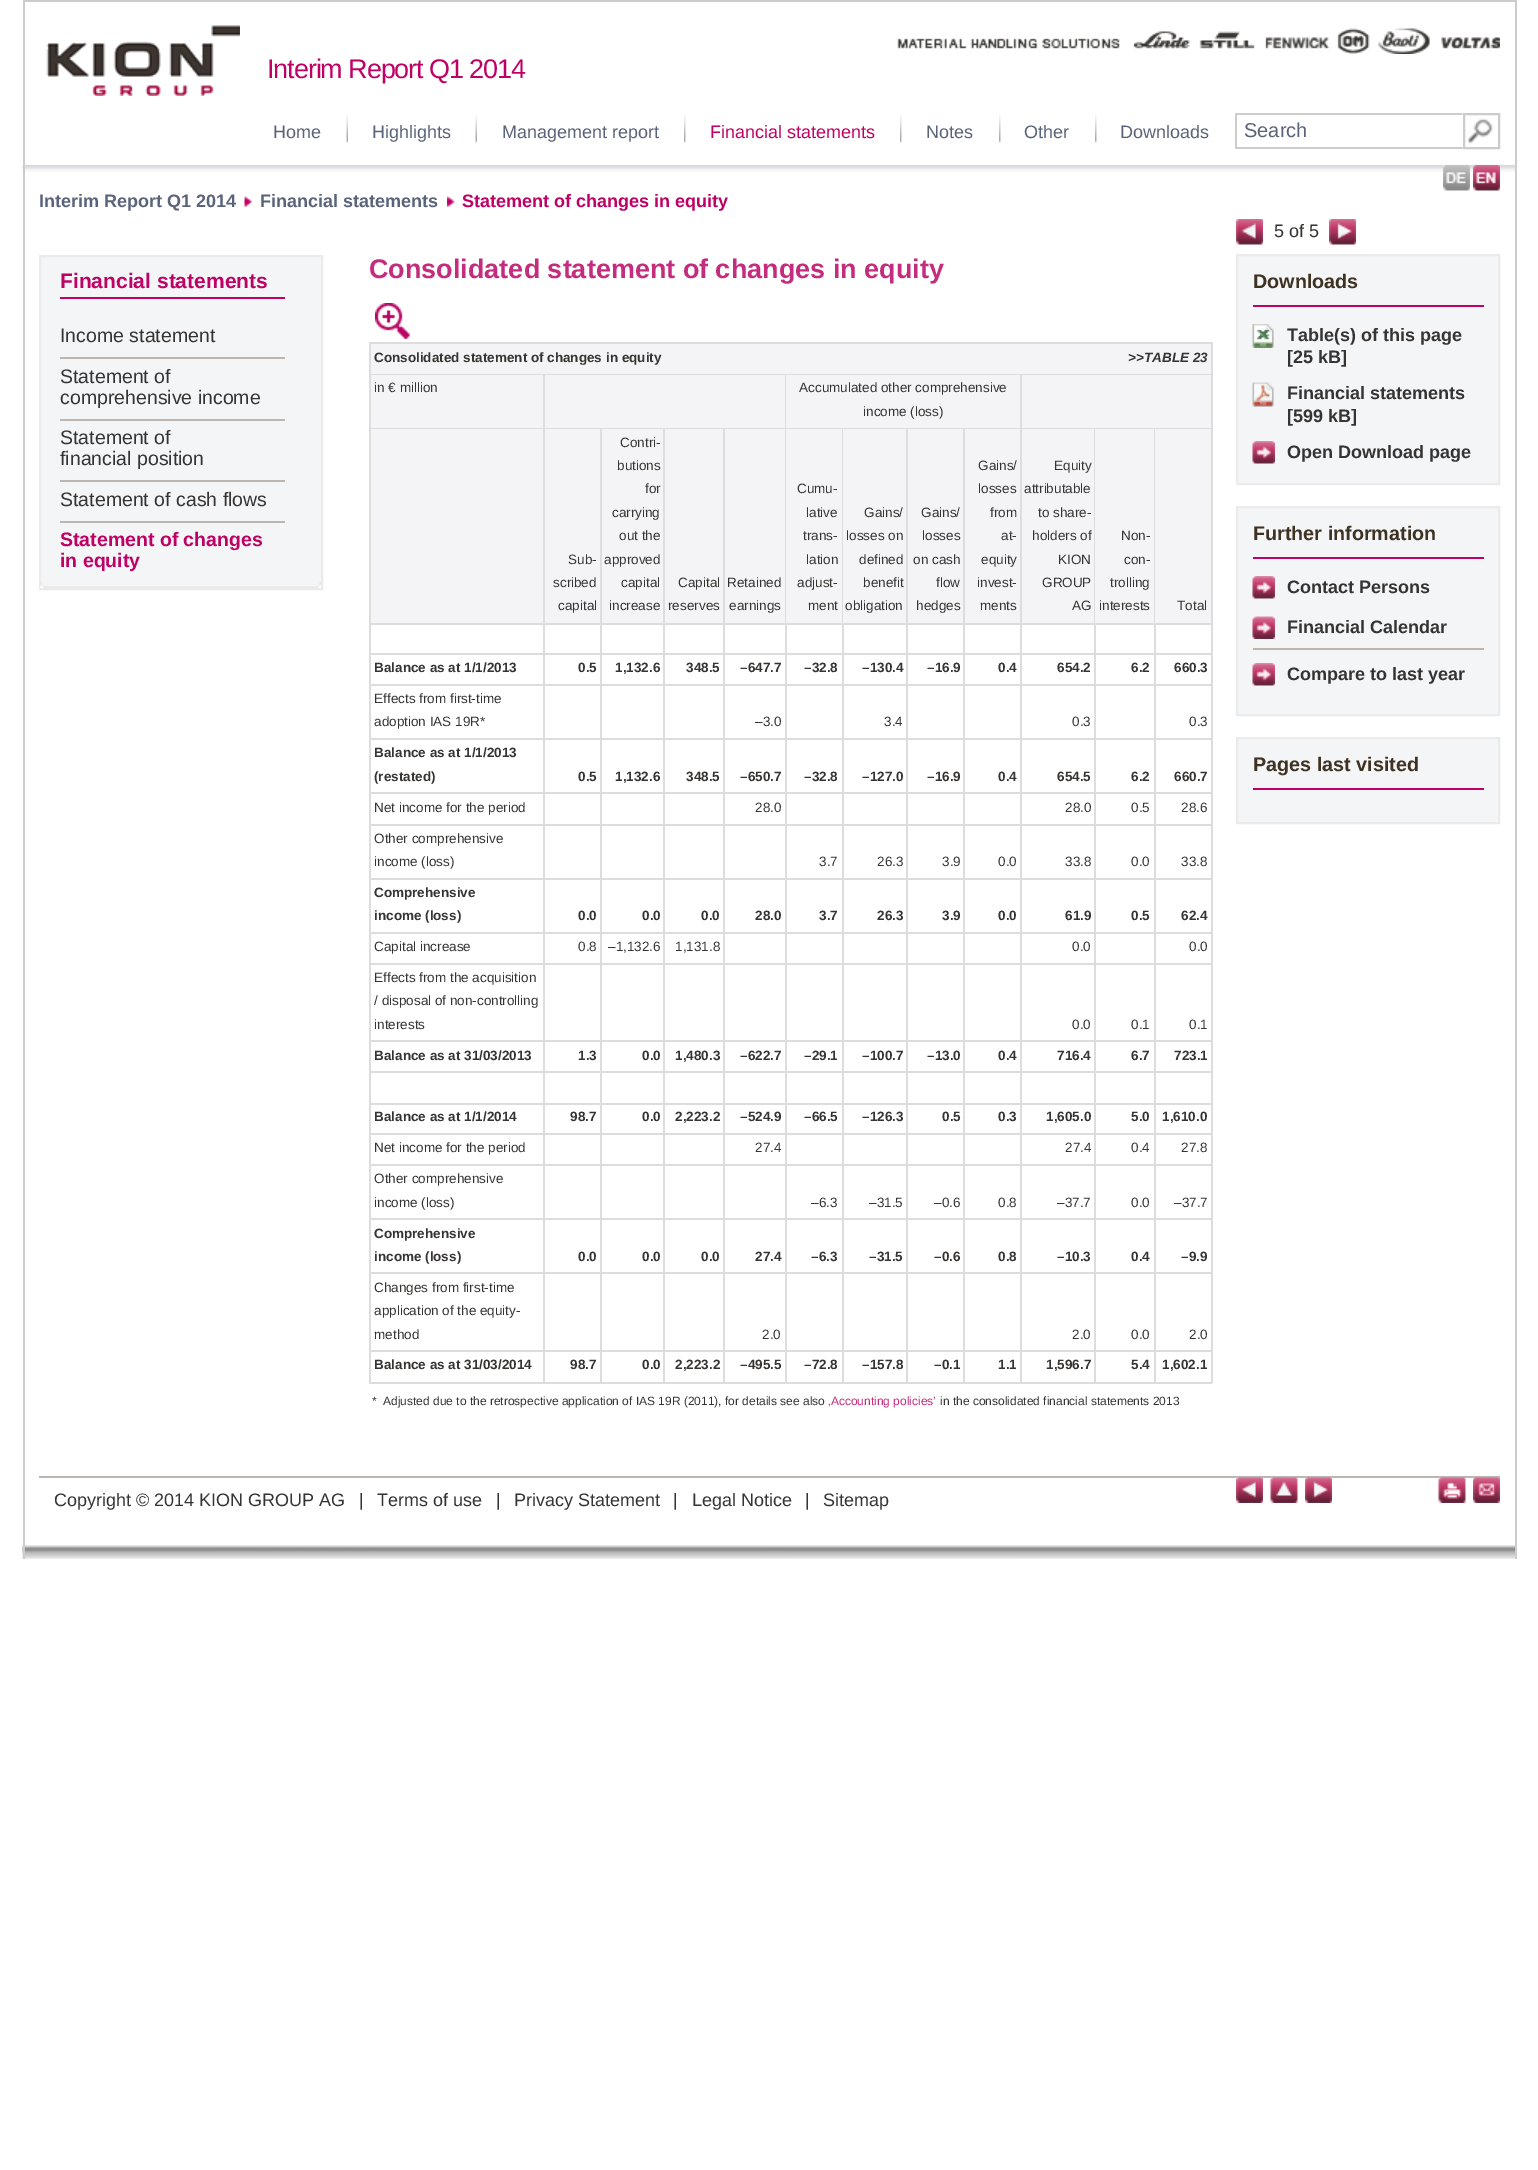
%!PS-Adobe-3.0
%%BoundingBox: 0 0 1538 2170
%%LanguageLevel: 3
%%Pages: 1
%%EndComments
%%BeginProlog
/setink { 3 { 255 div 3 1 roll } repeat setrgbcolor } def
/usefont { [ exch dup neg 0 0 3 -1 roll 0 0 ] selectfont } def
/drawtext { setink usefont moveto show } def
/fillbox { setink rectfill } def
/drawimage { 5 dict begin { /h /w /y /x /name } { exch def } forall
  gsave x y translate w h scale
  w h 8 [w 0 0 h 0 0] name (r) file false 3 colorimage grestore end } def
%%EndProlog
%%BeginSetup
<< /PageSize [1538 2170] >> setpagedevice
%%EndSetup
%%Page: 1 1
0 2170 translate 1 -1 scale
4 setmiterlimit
0 0 1538 2170 255 255 255 fillbox
(assets/img1.rgb) 22 164 1493 8 drawimage
23 0 1494 2 204 204 204 fillbox
1515 0 2 1559 204 204 204 fillbox
23 0 2 1476 204 204 204 fillbox
(assets/img2.rgb) 46 25 194 71 drawimage
(assets/img3.rgb) 897 28 603 26 drawimage
/LiberationSans-Regular 27 usefont
191 1 101 setink
267 78 moveto -1.1 0 (Interim Report Q1 2014) ashow
(Home) 273 138 /LiberationSans-Regular 18 89 99 121 drawtext
(assets/img4.rgb) 346 114 2 29 drawimage
(Highlights) 372 138 /LiberationSans-Regular 18 89 99 121 drawtext
(assets/img4.rgb) 475 114 2 29 drawimage
(Management report) 502 138 /LiberationSans-Regular 18 89 99 121 drawtext
(assets/img5.rgb) 684 114 2 29 drawimage
(Financial statements) 710 138 /LiberationSans-Regular 18 191 1 101 drawtext
(assets/img5.rgb) 900 114 2 29 drawimage
(Notes) 926 138 /LiberationSans-Regular 18 89 99 121 drawtext
(assets/img5.rgb) 999 114 2 29 drawimage
(Other) 1024 138 /LiberationSans-Regular 18 89 99 121 drawtext
(assets/img5.rgb) 1095 114 2 29 drawimage
(Downloads) 1120 138 /LiberationSans-Regular 18 89 99 121 drawtext
1235 113 228 2 204 204 204 fillbox
1235 147 228 2 204 204 204 fillbox
1235 113 2 36 204 204 204 fillbox
(Search) 1244 137 /LiberationSans-Regular 20 89 99 121 drawtext
(assets/img6.rgb) 1462 113 31 36 drawimage
204 204 204 setink
2 setlinewidth
1464 114 35 34 rectstroke
(assets/img7.rgb) 1443 165 27 26 drawimage
(assets/img8.rgb) 1473 165 27 26 drawimage
(Interim Report Q1 2014) 39 207 /LiberationSans-Bold 18 89 99 121 drawtext
(assets/img9.rgb) 244 196 8 11 drawimage
(Financial statements) 260 207 /LiberationSans-Bold 18 89 99 121 drawtext
(assets/img10.rgb) 447 196 8 11 drawimage
(Statement of changes in equity) 462 207 /LiberationSans-Bold 18 191 1 101 drawtext
41 257 280 325 243 245 247 fillbox
235 235 235 setink
40 256 282 333 rectstroke
60 297 225 2 191 1 101 fillbox
(Financial statements) 60 288 /LiberationSans-Bold 21 191 1 101 drawtext
(assets/img11.rgb) 40 582 281 6 drawimage
60 357 225 2 189 182 176 fillbox
(Income statement) 60 342 /LiberationSans-Regular 19.5 54 52 51 drawtext
60 419 225 2 189 182 176 fillbox
(Statement of) 60 383 /LiberationSans-Regular 19.5 54 52 51 drawtext
(comprehensive income) 60 404 /LiberationSans-Regular 19.5 54 52 51 drawtext
60 480 225 2 189 182 176 fillbox
(Statement of) 60 444 /LiberationSans-Regular 19.5 54 52 51 drawtext
(financial position) 60 465 /LiberationSans-Regular 19.5 54 52 51 drawtext
60 521 225 2 189 182 176 fillbox
(Statement of cash flows) 60 506 /LiberationSans-Regular 19.5 54 52 51 drawtext
(Statement of changes) 60 546 /LiberationSans-Bold 19.5 191 1 101 drawtext
(in equity) 60 567 /LiberationSans-Bold 19.5 191 1 101 drawtext
(Consolidated statement of changes in equity) 369 278 /LiberationSans-Bold 27 196 44 126 drawtext
(assets/img12.rgb) 375 303 35 36 drawimage
371 344 840 30 244 244 246 fillbox
369 342 843 2 221 221 221 fillbox
369 374 653 1 221 221 221 fillbox
369 342 2 33 221 221 221 fillbox
(Consolidated statement of changes in equity) 374 362 /LiberationSans-Bold 13.5 54 52 51 drawtext
1211 342 2 282 221 221 221 fillbox
1022 374 190 1 221 221 221 fillbox
(>>TABLE 23) 1128 362 /LiberationSans-BoldItalic 13.5 54 52 51 drawtext
371 375 172 53 244 244 246 fillbox
543 375 2 249 221 221 221 fillbox
369 428 176 1 221 221 221 fillbox
369 375 2 54 221 221 221 fillbox
(in € million) 374 392 /LiberationSans-Regular 13.5 54 52 51 drawtext
545 375 240 53 244 244 246 fillbox
785 375 1 249 221 221 221 fillbox
545 428 241 1 221 221 221 fillbox
786 375 234 53 244 244 246 fillbox
1020 375 2 249 221 221 221 fillbox
786 428 426 1 221 221 221 fillbox
(Accumulated other comprehensive) 799 392 /LiberationSans-Regular 13.5 54 52 51 drawtext
(income \(loss\)) 863 416 /LiberationSans-Regular 13.5 54 52 51 drawtext
1022 375 189 53 244 244 246 fillbox
371 429 172 194 244 244 246 fillbox
369 623 176 2 221 221 221 fillbox
369 429 2 195 221 221 221 fillbox
545 429 55 194 244 244 246 fillbox
600 429 2 195 221 221 221 fillbox
545 623 57 2 221 221 221 fillbox
(Sub-) 568 564 /LiberationSans-Regular 13.5 54 52 51 drawtext
(scribed) 553 587 /LiberationSans-Regular 13.5 54 52 51 drawtext
(capital) 558 610 /LiberationSans-Regular 13.5 54 52 51 drawtext
602 429 61 194 244 244 246 fillbox
663 429 2 195 221 221 221 fillbox
602 623 63 2 221 221 221 fillbox
(Contri-) 620 447 /LiberationSans-Regular 13.5 54 52 51 drawtext
(butions) 617 470 /LiberationSans-Regular 13.5 54 52 51 drawtext
(for) 645 493 /LiberationSans-Regular 13.5 54 52 51 drawtext
(carrying) 612 517 /LiberationSans-Regular 13.5 54 52 51 drawtext
(out the) 619 540 /LiberationSans-Regular 13.5 54 52 51 drawtext
(approved) 604 564 /LiberationSans-Regular 13.5 54 52 51 drawtext
(capital) 621 587 /LiberationSans-Regular 13.5 54 52 51 drawtext
(increase) 609 610 /LiberationSans-Regular 13.5 54 52 51 drawtext
665 429 58 194 244 244 246 fillbox
723 429 2 195 221 221 221 fillbox
665 623 121 2 221 221 221 fillbox
(Capital) 678 587 /LiberationSans-Regular 13.5 54 52 51 drawtext
(reserves) 668 610 /LiberationSans-Regular 13.5 54 52 51 drawtext
725 429 60 194 244 244 246 fillbox
(Retained) 727 587 /LiberationSans-Regular 13.5 54 52 51 drawtext
(earnings) 729 610 /LiberationSans-Regular 13.5 54 52 51 drawtext
786 429 56 194 244 244 246 fillbox
842 429 1 195 221 221 221 fillbox
786 623 57 2 221 221 221 fillbox
(Cumu-) 797 493 /LiberationSans-Regular 13.5 54 52 51 drawtext
(lative) 806 517 /LiberationSans-Regular 13.5 54 52 51 drawtext
(trans-) 803 540 /LiberationSans-Regular 13.5 54 52 51 drawtext
(lation) 806 564 /LiberationSans-Regular 13.5 54 52 51 drawtext
(adjust-) 797 587 /LiberationSans-Regular 13.5 54 52 51 drawtext
(ment) 808 610 /LiberationSans-Regular 13.5 54 52 51 drawtext
843 429 63 194 244 244 246 fillbox
906 429 2 195 221 221 221 fillbox
843 623 65 2 221 221 221 fillbox
(Gains/) 864 517 /LiberationSans-Regular 13.5 54 52 51 drawtext
(losses on) 846 540 /LiberationSans-Regular 13.5 54 52 51 drawtext
(defined) 859 564 /LiberationSans-Regular 13.5 54 52 51 drawtext
(benefit) 863 587 /LiberationSans-Regular 13.5 54 52 51 drawtext
(obligation) 845 610 /LiberationSans-Regular 13.5 54 52 51 drawtext
908 429 55 194 244 244 246 fillbox
963 429 2 195 221 221 221 fillbox
908 623 114 2 221 221 221 fillbox
(Gains/) 921 517 /LiberationSans-Regular 13.5 54 52 51 drawtext
(losses) 922 540 /LiberationSans-Regular 13.5 54 52 51 drawtext
(on cash) 913 564 /LiberationSans-Regular 13.5 54 52 51 drawtext
(flow) 936 587 /LiberationSans-Regular 13.5 54 52 51 drawtext
(hedges) 916 610 /LiberationSans-Regular 13.5 54 52 51 drawtext
965 429 55 194 244 244 246 fillbox
(Gains/) 978 470 /LiberationSans-Regular 13.5 54 52 51 drawtext
(losses) 978 493 /LiberationSans-Regular 13.5 54 52 51 drawtext
(from) 990 517 /LiberationSans-Regular 13.5 54 52 51 drawtext
(at-) 1001 540 /LiberationSans-Regular 13.5 54 52 51 drawtext
(equity) 981 564 /LiberationSans-Regular 13.5 54 52 51 drawtext
(invest-) 977 587 /LiberationSans-Regular 13.5 54 52 51 drawtext
(ments) 980 610 /LiberationSans-Regular 13.5 54 52 51 drawtext
1022 429 72 194 244 244 246 fillbox
1094 429 1 195 221 221 221 fillbox
1022 623 73 2 221 221 221 fillbox
(Equity) 1054 470 /LiberationSans-Regular 13.5 54 52 51 drawtext
(attributable) 1024 493 /LiberationSans-Regular 13.5 54 52 51 drawtext
(to share-) 1038 517 /LiberationSans-Regular 13.5 54 52 51 drawtext
(holders of) 1032 540 /LiberationSans-Regular 13.5 54 52 51 drawtext
(KION) 1058 564 /LiberationSans-Regular 13.5 54 52 51 drawtext
(GROUP) 1042 587 /LiberationSans-Regular 13.5 54 52 51 drawtext
(AG) 1072 610 /LiberationSans-Regular 13.5 54 52 51 drawtext
1095 429 59 194 244 244 246 fillbox
1154 429 1 195 221 221 221 fillbox
1095 623 117 2 221 221 221 fillbox
(Non-) 1121 540 /LiberationSans-Regular 13.5 54 52 51 drawtext
(con-) 1124 564 /LiberationSans-Regular 13.5 54 52 51 drawtext
(trolling) 1110 587 /LiberationSans-Regular 13.5 54 52 51 drawtext
(interests) 1099 610 /LiberationSans-Regular 13.5 54 52 51 drawtext
1155 429 56 194 244 244 246 fillbox
(Total) 1177 610 /LiberationSans-Regular 13.5 54 52 51 drawtext
543 624 2 30 221 221 221 fillbox
369 653 176 2 221 221 221 fillbox
369 624 2 30 221 221 221 fillbox
600 624 2 30 221 221 221 fillbox
545 653 57 2 221 221 221 fillbox
663 624 2 30 221 221 221 fillbox
602 653 63 2 221 221 221 fillbox
723 624 2 30 221 221 221 fillbox
665 653 60 2 221 221 221 fillbox
785 624 2 30 221 221 221 fillbox
725 653 61 2 221 221 221 fillbox
842 624 2 30 221 221 221 fillbox
786 653 57 2 221 221 221 fillbox
906 624 2 30 221 221 221 fillbox
843 653 65 2 221 221 221 fillbox
963 624 2 30 221 221 221 fillbox
908 653 57 2 221 221 221 fillbox
1020 624 2 30 221 221 221 fillbox
965 653 57 2 221 221 221 fillbox
1094 624 2 30 221 221 221 fillbox
1022 653 73 2 221 221 221 fillbox
1154 624 2 30 221 221 221 fillbox
1095 653 60 2 221 221 221 fillbox
1211 624 2 30 221 221 221 fillbox
1155 653 57 2 221 221 221 fillbox
543 654 2 171 221 221 221 fillbox
369 684 176 2 221 221 221 fillbox
369 654 2 32 221 221 221 fillbox
(Balance as at 1/1/2013) 374 672 /LiberationSans-Bold 13.5 54 52 51 drawtext
600 654 2 171 221 221 221 fillbox
545 684 57 2 221 221 221 fillbox
(0.5) 578 672 /LiberationSans-Bold 13.5 54 52 51 drawtext
663 654 2 171 221 221 221 fillbox
602 684 63 2 221 221 221 fillbox
(1,132.6) 615 672 /LiberationSans-Bold 13.5 54 52 51 drawtext
723 654 2 171 221 221 221 fillbox
665 684 60 2 221 221 221 fillbox
(348.5) 686 672 /LiberationSans-Bold 13.5 54 52 51 drawtext
785 654 2 171 221 221 221 fillbox
725 684 61 2 221 221 221 fillbox
(–647.7) 740 672 /LiberationSans-Bold 13.5 54 52 51 drawtext
842 654 2 171 221 221 221 fillbox
786 684 57 2 221 221 221 fillbox
(–32.8) 804 672 /LiberationSans-Bold 13.5 54 52 51 drawtext
906 654 2 171 221 221 221 fillbox
843 684 65 2 221 221 221 fillbox
(–130.4) 862 672 /LiberationSans-Bold 13.5 54 52 51 drawtext
963 654 2 171 221 221 221 fillbox
908 684 57 2 221 221 221 fillbox
(–16.9) 927 672 /LiberationSans-Bold 13.5 54 52 51 drawtext
1020 654 2 171 221 221 221 fillbox
965 684 57 2 221 221 221 fillbox
(0.4) 998 672 /LiberationSans-Bold 13.5 54 52 51 drawtext
1094 654 2 171 221 221 221 fillbox
1022 684 73 2 221 221 221 fillbox
(654.2) 1057 672 /LiberationSans-Bold 13.5 54 52 51 drawtext
1154 654 2 171 221 221 221 fillbox
1095 684 60 2 221 221 221 fillbox
(6.2) 1131 672 /LiberationSans-Bold 13.5 54 52 51 drawtext
1211 654 2 171 221 221 221 fillbox
1155 684 57 2 221 221 221 fillbox
(660.3) 1174 672 /LiberationSans-Bold 13.5 54 52 51 drawtext
369 738 843 2 221 221 221 fillbox
369 686 2 54 221 221 221 fillbox
(Effects from first-time) 374 703 /LiberationSans-Regular 13.5 54 52 51 drawtext
(adoption IAS 19R*) 374 726 /LiberationSans-Regular 13.5 54 52 51 drawtext
(–3.0) 755 726 /LiberationSans-Regular 13.5 54 52 51 drawtext
(3.4) 884 726 /LiberationSans-Regular 13.5 54 52 51 drawtext
(0.3) 1072 726 /LiberationSans-Regular 13.5 54 52 51 drawtext
(0.3) 1189 726 /LiberationSans-Regular 13.5 54 52 51 drawtext
369 792 843 2 221 221 221 fillbox
369 740 2 54 221 221 221 fillbox
(Balance as at 1/1/2013) 374 757 /LiberationSans-Bold 13.5 54 52 51 drawtext
(\(restated\)) 374 781 /LiberationSans-Bold 13.5 54 52 51 drawtext
(0.5) 578 781 /LiberationSans-Bold 13.5 54 52 51 drawtext
(1,132.6) 615 781 /LiberationSans-Bold 13.5 54 52 51 drawtext
(348.5) 686 781 /LiberationSans-Bold 13.5 54 52 51 drawtext
(–650.7) 740 781 /LiberationSans-Bold 13.5 54 52 51 drawtext
(–32.8) 804 781 /LiberationSans-Bold 13.5 54 52 51 drawtext
(–127.0) 862 781 /LiberationSans-Bold 13.5 54 52 51 drawtext
(–16.9) 927 781 /LiberationSans-Bold 13.5 54 52 51 drawtext
(0.4) 998 781 /LiberationSans-Bold 13.5 54 52 51 drawtext
(654.5) 1057 781 /LiberationSans-Bold 13.5 54 52 51 drawtext
(6.2) 1131 781 /LiberationSans-Bold 13.5 54 52 51 drawtext
(660.7) 1174 781 /LiberationSans-Bold 13.5 54 52 51 drawtext
369 824 843 2 221 221 221 fillbox
369 794 2 31 221 221 221 fillbox
(Net income for the period) 374 812 /LiberationSans-Regular 13.5 54 52 51 drawtext
(28.0) 755 812 /LiberationSans-Regular 13.5 54 52 51 drawtext
(28.0) 1065 812 /LiberationSans-Regular 13.5 54 52 51 drawtext
(0.5) 1131 812 /LiberationSans-Regular 13.5 54 52 51 drawtext
(28.6) 1181 812 /LiberationSans-Regular 13.5 54 52 51 drawtext
543 825 2 54 221 221 221 fillbox
369 878 176 2 221 221 221 fillbox
369 825 2 54 221 221 221 fillbox
(Other comprehensive) 374 843 /LiberationSans-Regular 13.5 54 52 51 drawtext
(income \(loss\)) 374 866 /LiberationSans-Regular 13.5 54 52 51 drawtext
600 825 2 54 221 221 221 fillbox
545 878 57 2 221 221 221 fillbox
663 825 2 54 221 221 221 fillbox
602 878 63 2 221 221 221 fillbox
723 825 2 54 221 221 221 fillbox
665 878 60 2 221 221 221 fillbox
785 825 2 54 221 221 221 fillbox
725 878 61 2 221 221 221 fillbox
842 825 2 54 221 221 221 fillbox
786 878 57 2 221 221 221 fillbox
(3.7) 819 866 /LiberationSans-Regular 13.5 54 52 51 drawtext
906 825 2 54 221 221 221 fillbox
843 878 65 2 221 221 221 fillbox
(26.3) 877 866 /LiberationSans-Regular 13.5 54 52 51 drawtext
963 825 2 54 221 221 221 fillbox
908 878 57 2 221 221 221 fillbox
(3.9) 942 866 /LiberationSans-Regular 13.5 54 52 51 drawtext
1020 825 2 54 221 221 221 fillbox
965 878 57 2 221 221 221 fillbox
(0.0) 998 866 /LiberationSans-Regular 13.5 54 52 51 drawtext
1094 825 2 54 221 221 221 fillbox
1022 878 73 2 221 221 221 fillbox
(33.8) 1065 866 /LiberationSans-Regular 13.5 54 52 51 drawtext
1154 825 2 54 221 221 221 fillbox
1095 878 60 2 221 221 221 fillbox
(0.0) 1131 866 /LiberationSans-Regular 13.5 54 52 51 drawtext
1211 825 2 54 221 221 221 fillbox
1155 878 57 2 221 221 221 fillbox
(33.8) 1181 866 /LiberationSans-Regular 13.5 54 52 51 drawtext
543 879 2 54 221 221 221 fillbox
369 932 176 2 221 221 221 fillbox
369 879 2 54 221 221 221 fillbox
(Comprehensive) 374 897 /LiberationSans-Bold 13.5 54 52 51 drawtext
(income \(loss\)) 374 920 /LiberationSans-Bold 13.5 54 52 51 drawtext
600 879 2 54 221 221 221 fillbox
545 932 57 2 221 221 221 fillbox
(0.0) 578 920 /LiberationSans-Bold 13.5 54 52 51 drawtext
663 879 2 54 221 221 221 fillbox
602 932 63 2 221 221 221 fillbox
(0.0) 642 920 /LiberationSans-Bold 13.5 54 52 51 drawtext
723 879 2 54 221 221 221 fillbox
665 932 60 2 221 221 221 fillbox
(0.0) 701 920 /LiberationSans-Bold 13.5 54 52 51 drawtext
785 879 2 54 221 221 221 fillbox
725 932 61 2 221 221 221 fillbox
(28.0) 755 920 /LiberationSans-Bold 13.5 54 52 51 drawtext
842 879 2 54 221 221 221 fillbox
786 932 57 2 221 221 221 fillbox
(3.7) 819 920 /LiberationSans-Bold 13.5 54 52 51 drawtext
906 879 2 54 221 221 221 fillbox
843 932 65 2 221 221 221 fillbox
(26.3) 877 920 /LiberationSans-Bold 13.5 54 52 51 drawtext
963 879 2 54 221 221 221 fillbox
908 932 57 2 221 221 221 fillbox
(3.9) 942 920 /LiberationSans-Bold 13.5 54 52 51 drawtext
1020 879 2 54 221 221 221 fillbox
965 932 57 2 221 221 221 fillbox
(0.0) 998 920 /LiberationSans-Bold 13.5 54 52 51 drawtext
1094 879 2 54 221 221 221 fillbox
1022 932 73 2 221 221 221 fillbox
(61.9) 1065 920 /LiberationSans-Bold 13.5 54 52 51 drawtext
1154 879 2 54 221 221 221 fillbox
1095 932 60 2 221 221 221 fillbox
(0.5) 1131 920 /LiberationSans-Bold 13.5 54 52 51 drawtext
1211 879 2 54 221 221 221 fillbox
1155 932 57 2 221 221 221 fillbox
(62.4) 1181 920 /LiberationSans-Bold 13.5 54 52 51 drawtext
543 933 2 108 221 221 221 fillbox
369 963 176 2 221 221 221 fillbox
369 933 2 32 221 221 221 fillbox
(Capital increase) 374 951 /LiberationSans-Regular 13.5 54 52 51 drawtext
600 933 2 108 221 221 221 fillbox
545 963 57 2 221 221 221 fillbox
(0.8) 578 951 /LiberationSans-Regular 13.5 54 52 51 drawtext
663 933 2 108 221 221 221 fillbox
602 963 63 2 221 221 221 fillbox
(–1,132.6) 608 951 /LiberationSans-Regular 13.5 54 52 51 drawtext
723 933 2 108 221 221 221 fillbox
665 963 60 2 221 221 221 fillbox
(1,131.8) 675 951 /LiberationSans-Regular 13.5 54 52 51 drawtext
785 933 2 108 221 221 221 fillbox
725 963 61 2 221 221 221 fillbox
842 933 2 108 221 221 221 fillbox
786 963 57 2 221 221 221 fillbox
906 933 2 108 221 221 221 fillbox
843 963 65 2 221 221 221 fillbox
963 933 2 108 221 221 221 fillbox
908 963 57 2 221 221 221 fillbox
1020 933 2 108 221 221 221 fillbox
965 963 57 2 221 221 221 fillbox
1094 933 2 108 221 221 221 fillbox
1022 963 73 2 221 221 221 fillbox
(0.0) 1072 951 /LiberationSans-Regular 13.5 54 52 51 drawtext
1154 933 2 108 221 221 221 fillbox
1095 963 60 2 221 221 221 fillbox
1211 933 2 108 221 221 221 fillbox
1155 963 57 2 221 221 221 fillbox
(0.0) 1189 951 /LiberationSans-Regular 13.5 54 52 51 drawtext
369 1040 843 2 221 221 221 fillbox
369 965 2 76 221 221 221 fillbox
(Effects from the acquisition) 374 982 /LiberationSans-Regular 13.5 54 52 51 drawtext
(/ disposal of non-controlling) 374 1005 /LiberationSans-Regular 13.5 54 52 51 drawtext
(interests) 374 1029 /LiberationSans-Regular 13.5 54 52 51 drawtext
(0.0) 1072 1029 /LiberationSans-Regular 13.5 54 52 51 drawtext
(0.1) 1131 1029 /LiberationSans-Regular 13.5 54 52 51 drawtext
(0.1) 1189 1029 /LiberationSans-Regular 13.5 54 52 51 drawtext
543 1041 2 63 221 221 221 fillbox
369 1071 176 2 221 221 221 fillbox
369 1041 2 32 221 221 221 fillbox
(Balance as at 31/03/2013) 374 1060 /LiberationSans-Bold 13.5 54 52 51 drawtext
600 1041 2 63 221 221 221 fillbox
545 1071 57 2 221 221 221 fillbox
(1.3) 578 1060 /LiberationSans-Bold 13.5 54 52 51 drawtext
663 1041 2 63 221 221 221 fillbox
602 1071 63 2 221 221 221 fillbox
(0.0) 642 1060 /LiberationSans-Bold 13.5 54 52 51 drawtext
723 1041 2 63 221 221 221 fillbox
665 1071 60 2 221 221 221 fillbox
(1,480.3) 675 1060 /LiberationSans-Bold 13.5 54 52 51 drawtext
785 1041 2 63 221 221 221 fillbox
725 1071 61 2 221 221 221 fillbox
(–622.7) 740 1060 /LiberationSans-Bold 13.5 54 52 51 drawtext
842 1041 2 63 221 221 221 fillbox
786 1071 57 2 221 221 221 fillbox
(–29.1) 804 1060 /LiberationSans-Bold 13.5 54 52 51 drawtext
906 1041 2 63 221 221 221 fillbox
843 1071 65 2 221 221 221 fillbox
(–100.7) 862 1060 /LiberationSans-Bold 13.5 54 52 51 drawtext
963 1041 2 63 221 221 221 fillbox
908 1071 57 2 221 221 221 fillbox
(–13.0) 927 1060 /LiberationSans-Bold 13.5 54 52 51 drawtext
1020 1041 2 63 221 221 221 fillbox
965 1071 57 2 221 221 221 fillbox
(0.4) 998 1060 /LiberationSans-Bold 13.5 54 52 51 drawtext
1094 1041 2 63 221 221 221 fillbox
1022 1071 73 2 221 221 221 fillbox
(716.4) 1057 1060 /LiberationSans-Bold 13.5 54 52 51 drawtext
1154 1041 2 63 221 221 221 fillbox
1095 1071 60 2 221 221 221 fillbox
(6.7) 1131 1060 /LiberationSans-Bold 13.5 54 52 51 drawtext
1211 1041 2 63 221 221 221 fillbox
1155 1071 57 2 221 221 221 fillbox
(723.1) 1174 1060 /LiberationSans-Bold 13.5 54 52 51 drawtext
369 1103 843 2 221 221 221 fillbox
369 1073 2 31 221 221 221 fillbox
543 1104 2 30 221 221 221 fillbox
369 1133 176 2 221 221 221 fillbox
369 1104 2 30 221 221 221 fillbox
(Balance as at 1/1/2014) 374 1121 /LiberationSans-Bold 13.5 54 52 51 drawtext
600 1104 2 30 221 221 221 fillbox
545 1133 57 2 221 221 221 fillbox
(98.7) 570 1121 /LiberationSans-Bold 13.5 54 52 51 drawtext
663 1104 2 30 221 221 221 fillbox
602 1133 63 2 221 221 221 fillbox
(0.0) 642 1121 /LiberationSans-Bold 13.5 54 52 51 drawtext
723 1104 2 30 221 221 221 fillbox
665 1133 60 2 221 221 221 fillbox
(2,223.2) 675 1121 /LiberationSans-Bold 13.5 54 52 51 drawtext
785 1104 2 30 221 221 221 fillbox
725 1133 61 2 221 221 221 fillbox
(–524.9) 740 1121 /LiberationSans-Bold 13.5 54 52 51 drawtext
842 1104 2 30 221 221 221 fillbox
786 1133 57 2 221 221 221 fillbox
(–66.5) 804 1121 /LiberationSans-Bold 13.5 54 52 51 drawtext
906 1104 2 30 221 221 221 fillbox
843 1133 65 2 221 221 221 fillbox
(–126.3) 862 1121 /LiberationSans-Bold 13.5 54 52 51 drawtext
963 1104 2 30 221 221 221 fillbox
908 1133 57 2 221 221 221 fillbox
(0.5) 942 1121 /LiberationSans-Bold 13.5 54 52 51 drawtext
1020 1104 2 30 221 221 221 fillbox
965 1133 57 2 221 221 221 fillbox
(0.3) 998 1121 /LiberationSans-Bold 13.5 54 52 51 drawtext
1094 1104 2 30 221 221 221 fillbox
1022 1133 73 2 221 221 221 fillbox
(1,605.0) 1046 1121 /LiberationSans-Bold 13.5 54 52 51 drawtext
1154 1104 2 30 221 221 221 fillbox
1095 1133 60 2 221 221 221 fillbox
(5.0) 1131 1121 /LiberationSans-Bold 13.5 54 52 51 drawtext
1211 1104 2 30 221 221 221 fillbox
1155 1133 57 2 221 221 221 fillbox
(1,610.0) 1162 1121 /LiberationSans-Bold 13.5 54 52 51 drawtext
543 1134 2 249 221 221 221 fillbox
369 1164 176 2 221 221 221 fillbox
369 1134 2 32 221 221 221 fillbox
(Net income for the period) 374 1152 /LiberationSans-Regular 13.5 54 52 51 drawtext
600 1134 2 249 221 221 221 fillbox
545 1164 57 2 221 221 221 fillbox
663 1134 2 249 221 221 221 fillbox
602 1164 63 2 221 221 221 fillbox
723 1134 2 249 221 221 221 fillbox
665 1164 60 2 221 221 221 fillbox
785 1134 2 249 221 221 221 fillbox
725 1164 61 2 221 221 221 fillbox
(27.4) 755 1152 /LiberationSans-Regular 13.5 54 52 51 drawtext
842 1134 2 249 221 221 221 fillbox
786 1164 57 2 221 221 221 fillbox
906 1134 2 249 221 221 221 fillbox
843 1164 65 2 221 221 221 fillbox
963 1134 2 249 221 221 221 fillbox
908 1164 57 2 221 221 221 fillbox
1020 1134 2 249 221 221 221 fillbox
965 1164 57 2 221 221 221 fillbox
1094 1134 2 249 221 221 221 fillbox
1022 1164 73 2 221 221 221 fillbox
(27.4) 1065 1152 /LiberationSans-Regular 13.5 54 52 51 drawtext
1154 1134 2 249 221 221 221 fillbox
1095 1164 60 2 221 221 221 fillbox
(0.4) 1131 1152 /LiberationSans-Regular 13.5 54 52 51 drawtext
1211 1134 2 249 221 221 221 fillbox
1155 1164 57 2 221 221 221 fillbox
(27.8) 1181 1152 /LiberationSans-Regular 13.5 54 52 51 drawtext
369 1218 843 2 221 221 221 fillbox
369 1166 2 54 221 221 221 fillbox
(Other comprehensive) 374 1183 /LiberationSans-Regular 13.5 54 52 51 drawtext
(income \(loss\)) 374 1207 /LiberationSans-Regular 13.5 54 52 51 drawtext
(–6.3) 811 1207 /LiberationSans-Regular 13.5 54 52 51 drawtext
(–31.5) 869 1207 /LiberationSans-Regular 13.5 54 52 51 drawtext
(–0.6) 934 1207 /LiberationSans-Regular 13.5 54 52 51 drawtext
(0.8) 998 1207 /LiberationSans-Regular 13.5 54 52 51 drawtext
(–37.7) 1057 1207 /LiberationSans-Regular 13.5 54 52 51 drawtext
(0.0) 1131 1207 /LiberationSans-Regular 13.5 54 52 51 drawtext
(–37.7) 1174 1207 /LiberationSans-Regular 13.5 54 52 51 drawtext
369 1272 843 2 221 221 221 fillbox
369 1220 2 54 221 221 221 fillbox
(Comprehensive) 374 1238 /LiberationSans-Bold 13.5 54 52 51 drawtext
(income \(loss\)) 374 1261 /LiberationSans-Bold 13.5 54 52 51 drawtext
(0.0) 578 1261 /LiberationSans-Bold 13.5 54 52 51 drawtext
(0.0) 642 1261 /LiberationSans-Bold 13.5 54 52 51 drawtext
(0.0) 701 1261 /LiberationSans-Bold 13.5 54 52 51 drawtext
(27.4) 755 1261 /LiberationSans-Bold 13.5 54 52 51 drawtext
(–6.3) 811 1261 /LiberationSans-Bold 13.5 54 52 51 drawtext
(–31.5) 869 1261 /LiberationSans-Bold 13.5 54 52 51 drawtext
(–0.6) 934 1261 /LiberationSans-Bold 13.5 54 52 51 drawtext
(0.8) 998 1261 /LiberationSans-Bold 13.5 54 52 51 drawtext
(–10.3) 1057 1261 /LiberationSans-Bold 13.5 54 52 51 drawtext
(0.4) 1131 1261 /LiberationSans-Bold 13.5 54 52 51 drawtext
(–9.9) 1181 1261 /LiberationSans-Bold 13.5 54 52 51 drawtext
369 1350 843 2 221 221 221 fillbox
369 1274 2 78 221 221 221 fillbox
(Changes from first-time) 374 1292 /LiberationSans-Regular 13.5 54 52 51 drawtext
(application of the equity-) 374 1315 /LiberationSans-Regular 13.5 54 52 51 drawtext
(method) 374 1339 /LiberationSans-Regular 13.5 54 52 51 drawtext
(2.0) 762 1339 /LiberationSans-Regular 13.5 54 52 51 drawtext
(2.0) 1072 1339 /LiberationSans-Regular 13.5 54 52 51 drawtext
(0.0) 1131 1339 /LiberationSans-Regular 13.5 54 52 51 drawtext
(2.0) 1189 1339 /LiberationSans-Regular 13.5 54 52 51 drawtext
369 1382 843 2 221 221 221 fillbox
369 1352 2 31 221 221 221 fillbox
(Balance as at 31/03/2014) 374 1369 /LiberationSans-Bold 13.5 54 52 51 drawtext
(98.7) 570 1369 /LiberationSans-Bold 13.5 54 52 51 drawtext
(0.0) 642 1369 /LiberationSans-Bold 13.5 54 52 51 drawtext
(2,223.2) 675 1369 /LiberationSans-Bold 13.5 54 52 51 drawtext
(–495.5) 740 1369 /LiberationSans-Bold 13.5 54 52 51 drawtext
(–72.8) 804 1369 /LiberationSans-Bold 13.5 54 52 51 drawtext
(–157.8) 862 1369 /LiberationSans-Bold 13.5 54 52 51 drawtext
(–0.1) 934 1369 /LiberationSans-Bold 13.5 54 52 51 drawtext
(1.1) 998 1369 /LiberationSans-Bold 13.5 54 52 51 drawtext
(1,596.7) 1046 1369 /LiberationSans-Bold 13.5 54 52 51 drawtext
(5.4) 1131 1369 /LiberationSans-Bold 13.5 54 52 51 drawtext
(1,602.1) 1162 1369 /LiberationSans-Bold 13.5 54 52 51 drawtext
(*) 372 1405 /LiberationSans-Regular 12 54 52 51 drawtext
(Adjusted due to the retrospective application of IAS 19R \(2011\), for details see also) 383 1405 /LiberationSans-Regular 12 54 52 51 drawtext
(‚Accounting policies’) 828 1405 /LiberationSans-Regular 12 196 44 126 drawtext
(in the consolidated financial statements 2013) 940 1405 /LiberationSans-Regular 12 54 52 51 drawtext
(assets/img13.rgb) 1236 219 27 26 drawimage
(5) 1274 237 /LiberationSans-Regular 18 54 52 51 drawtext
(of) 1289 237 /LiberationSans-Regular 18 54 52 51 drawtext
(assets/img14.rgb) 1329 219 27 26 drawimage
(5) 1309 237 /LiberationSans-Regular 18 54 52 51 drawtext
243 245 247 setink
1237 255 moveto 1499 255 lineto 1499 484 lineto 1237 484 lineto closepath gsave fill grestore
235 235 235 setink
stroke
1253 305 231 2 191 1 101 fillbox
(Downloads) 1253 288 /LiberationSans-Bold 19.75 62 50 35 drawtext
(assets/img15.rgb) 1252 324 22 24 drawimage
(Table\(s\) of this page) 1287 341 /LiberationSans-Bold 18 54 52 51 drawtext
([25 kB]) 1287 363 /LiberationSans-Bold 18 54 52 51 drawtext
(assets/img16.rgb) 1252 382 22 25 drawimage
(Financial statements) 1287 399 /LiberationSans-Bold 18 54 52 51 drawtext
([599 kB]) 1287 422 /LiberationSans-Bold 18 54 52 51 drawtext
(assets/img17.rgb) 1252 441 23 23 drawimage
(Open Download page) 1287 458 /LiberationSans-Bold 18 54 52 51 drawtext
243 245 247 setink
1237 507 moveto 1499 507 lineto 1499 715 lineto 1237 715 lineto closepath gsave fill grestore
235 235 235 setink
stroke
1253 557 231 2 191 1 101 fillbox
(Further information) 1253 540 /LiberationSans-Bold 19.75 62 50 35 drawtext
(assets/img17.rgb) 1252 576 23 23 drawimage
(Contact Persons) 1287 593 /LiberationSans-Bold 18 54 52 51 drawtext
(assets/img18.rgb) 1252 616 23 23 drawimage
(Financial Calendar) 1287 633 /LiberationSans-Bold 18 54 52 51 drawtext
1253 648 231 2 189 182 176 fillbox
(assets/img17.rgb) 1252 663 23 23 drawimage
(Compare to last year) 1287 680 /LiberationSans-Bold 18 54 52 51 drawtext
243 245 247 setink
1237 738 moveto 1499 738 lineto 1499 823 lineto 1237 823 lineto closepath gsave fill grestore
235 235 235 setink
stroke
1253 788 231 2 191 1 101 fillbox
(Pages last visited) 1253 771 /LiberationSans-Bold 19.75 62 50 35 drawtext
(assets/img19.rgb) 22 1545 1493 14 drawimage
23 1476 2 83 204 204 204 fillbox
39 1476 1461 2 189 182 176 fillbox
(Copyright © 2014 KION GROUP AG) 54 1506 /LiberationSans-Regular 18 54 52 51 drawtext
(|) 359 1506 /LiberationSans-Regular 18 54 52 51 drawtext
(Terms of use) 377 1506 /LiberationSans-Regular 18 54 52 51 drawtext
(|) 496 1506 /LiberationSans-Regular 18 54 52 51 drawtext
(Privacy Statement) 514 1506 /LiberationSans-Regular 18 54 52 51 drawtext
(|) 673 1506 /LiberationSans-Regular 18 54 52 51 drawtext
(Legal Notice) 692 1506 /LiberationSans-Regular 18 54 52 51 drawtext
(|) 805 1506 /LiberationSans-Regular 18 54 52 51 drawtext
(Sitemap) 823 1506 /LiberationSans-Regular 18 54 52 51 drawtext
(assets/img20.rgb) 1236 1477 27 26 drawimage
(assets/img21.rgb) 1270 1477 28 26 drawimage
(assets/img22.rgb) 1305 1477 27 26 drawimage
(assets/img23.rgb) 1438 1477 28 26 drawimage
(assets/img24.rgb) 1473 1477 27 26 drawimage
showpage
%%EOF
